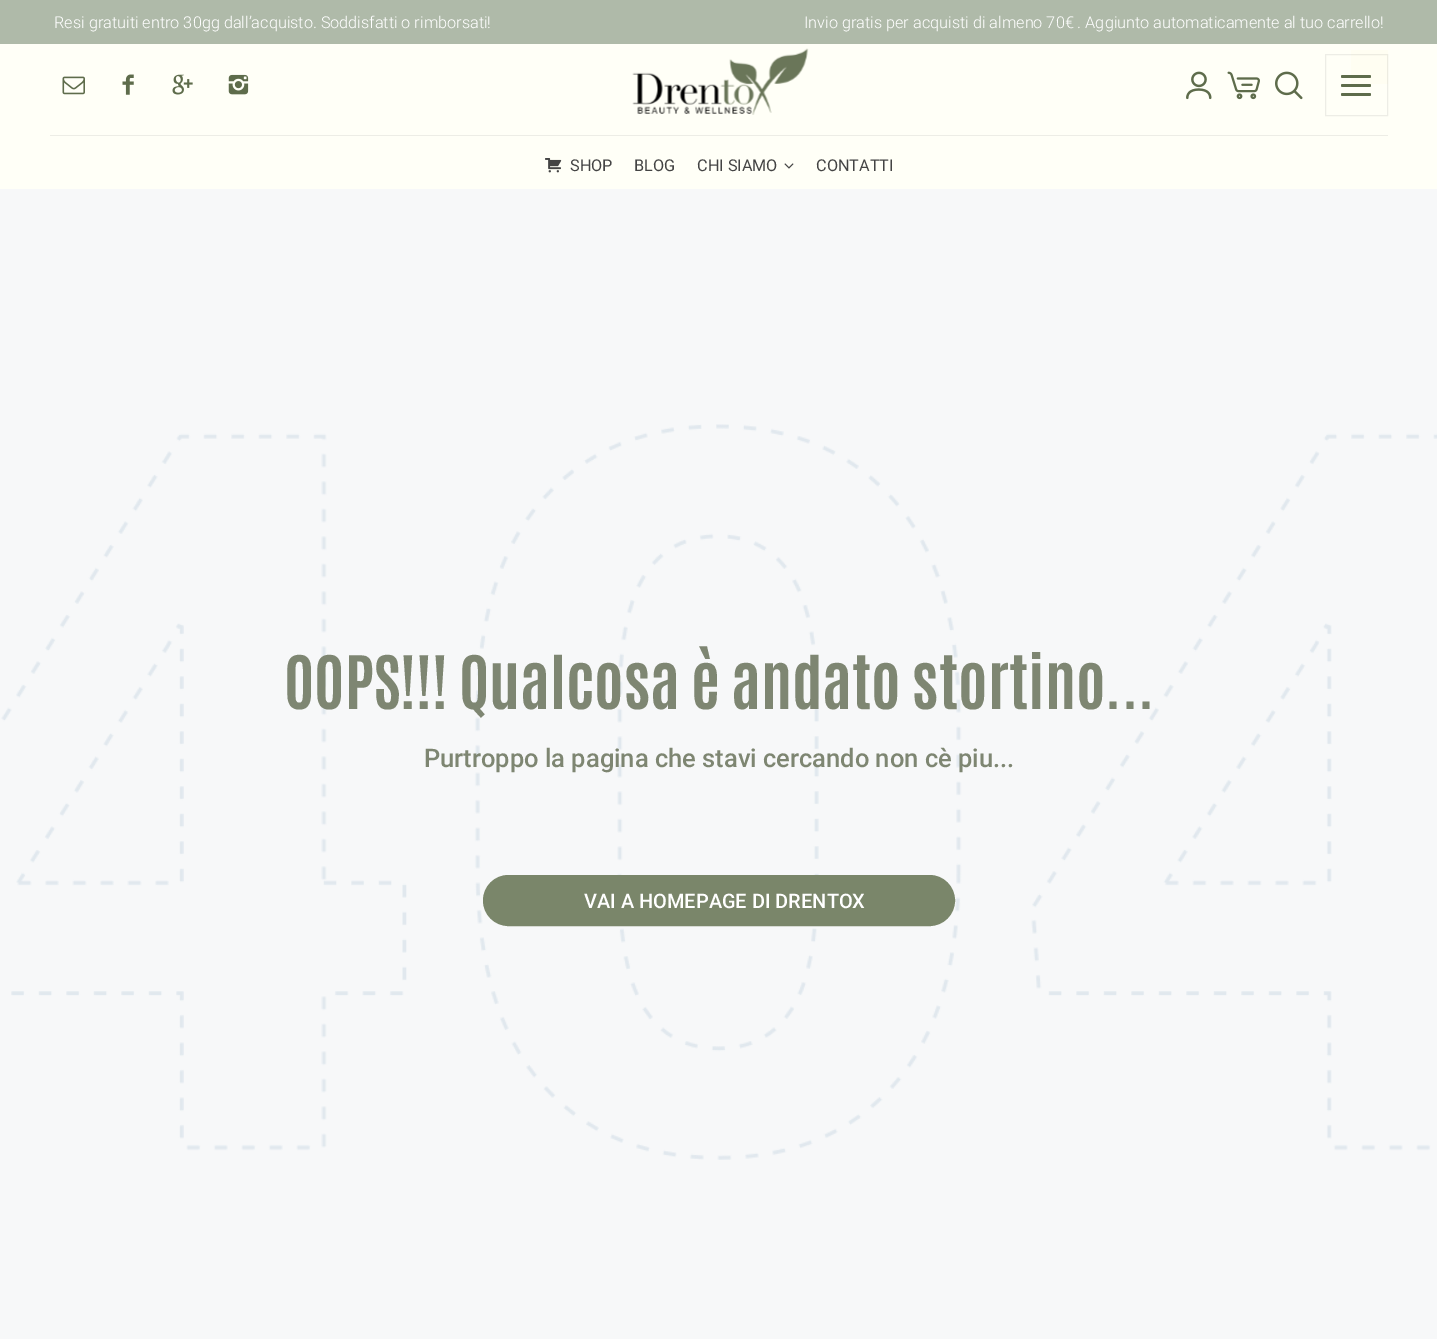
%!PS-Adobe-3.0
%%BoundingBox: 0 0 1437 1339
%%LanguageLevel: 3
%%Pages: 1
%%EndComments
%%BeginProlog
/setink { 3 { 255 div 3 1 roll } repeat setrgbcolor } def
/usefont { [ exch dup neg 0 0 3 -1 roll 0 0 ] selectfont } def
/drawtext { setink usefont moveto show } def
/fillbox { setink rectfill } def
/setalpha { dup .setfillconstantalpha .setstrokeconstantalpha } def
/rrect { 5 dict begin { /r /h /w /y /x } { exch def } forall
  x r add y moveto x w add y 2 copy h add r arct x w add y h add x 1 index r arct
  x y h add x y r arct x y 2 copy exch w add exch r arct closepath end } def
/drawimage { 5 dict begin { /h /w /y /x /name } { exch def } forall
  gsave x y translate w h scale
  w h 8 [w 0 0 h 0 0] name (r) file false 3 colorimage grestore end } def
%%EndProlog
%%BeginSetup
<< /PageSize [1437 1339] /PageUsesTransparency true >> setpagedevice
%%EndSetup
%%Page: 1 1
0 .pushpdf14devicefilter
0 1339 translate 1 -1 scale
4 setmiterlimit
0 0 1437 1339 255 255 247 fillbox
0 0 1437 44 175 186 169 fillbox
(Resi gratuiti entro 30gg dall’acquisto. Soddisfatti o rimborsati!) 54 28 /Roboto-Light 16.25 255 255 255 drawtext
(Invio gratis per acquisti di almeno 70€ . Aggiunto automaticamente al tuo carrello!) 804 28 /Roboto-Light 16.25 255 255 255 drawtext
(assets/img1.rgb) 62 76 23 19 drawimage
(assets/img2.rgb) 122 74 12 21 drawimage
(assets/img3.rgb) 172 74 21 21 drawimage
(assets/img4.rgb) 228 74 21 21 drawimage
(assets/img5.rgb) 632 48 177 67 drawimage
(assets/img6.rgb) 1186 71 26 29 drawimage
(assets/img7.rgb) 1227 71 33 29 drawimage
(assets/img8.rgb) 1275 71 28 29 drawimage
1351 50 37 34 255 254 242 fillbox
0.07 setalpha
0 0 0 setink
1325.5 54.5 62 61 rectstroke
1 setalpha
94 108 75 setink
1341 75 30 3 1.5 rrect fill
1341 84 30 3 1.5 rrect fill
1341 93 30 3 1.5 rrect fill
50 135 1338 1 237 237 230 fillbox
(assets/img9.rgb) 545 158 17 15 drawimage
(SHOP) 570 171 /Roboto-Regular 16.25 68 68 68 drawtext
(BLOG) 634 171 /Roboto-Regular 16.25 68 68 68 drawtext
(CHI SIAMO) 697 171 /Roboto-Regular 16.25 68 68 68 drawtext
(assets/img10.rgb) 784 163 10 6 drawimage
(CONTATTI) 816 171 /Roboto-Regular 16.25 68 68 68 drawtext
0 189 1437 1150 247 248 249 fillbox
(assets/img11.rgb) 1 424 1436 736 drawimage
(OOPS!!! Qualcosa è andato stortino...) 284 709 /Antonio-Bold 62.5 126 134 114 drawtext
(Purtroppo la pagina che stavi cercando non cè piu...) 424 767 /Roboto-Medium 25.5 126 134 114 drawtext
122 134 106 setink
484.5 876.5 469 48 24 rrect gsave fill grestore
3 setlinewidth
stroke
(VAI A HOMEPAGE DI DRENTOX) 584 908 /Roboto-Medium 20 255 255 255 drawtext
.poppdf14devicefilter showpage
%%EOF
